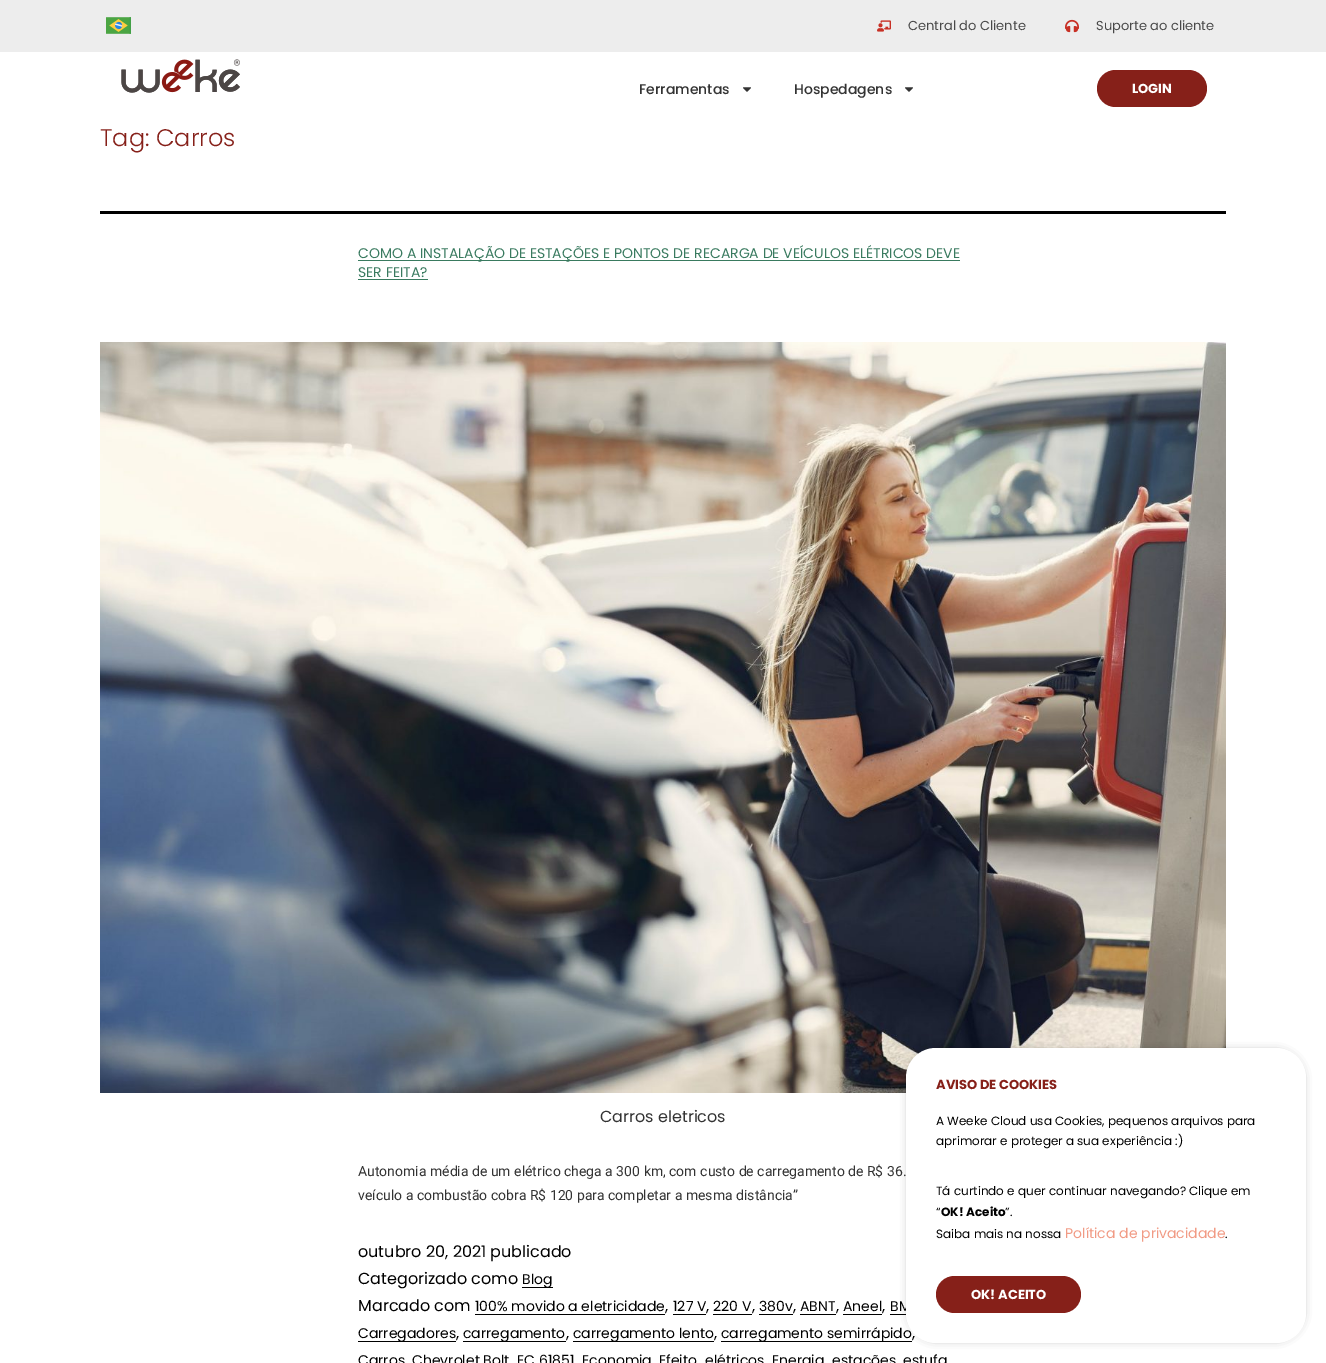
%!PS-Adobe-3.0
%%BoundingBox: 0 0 1326 1363
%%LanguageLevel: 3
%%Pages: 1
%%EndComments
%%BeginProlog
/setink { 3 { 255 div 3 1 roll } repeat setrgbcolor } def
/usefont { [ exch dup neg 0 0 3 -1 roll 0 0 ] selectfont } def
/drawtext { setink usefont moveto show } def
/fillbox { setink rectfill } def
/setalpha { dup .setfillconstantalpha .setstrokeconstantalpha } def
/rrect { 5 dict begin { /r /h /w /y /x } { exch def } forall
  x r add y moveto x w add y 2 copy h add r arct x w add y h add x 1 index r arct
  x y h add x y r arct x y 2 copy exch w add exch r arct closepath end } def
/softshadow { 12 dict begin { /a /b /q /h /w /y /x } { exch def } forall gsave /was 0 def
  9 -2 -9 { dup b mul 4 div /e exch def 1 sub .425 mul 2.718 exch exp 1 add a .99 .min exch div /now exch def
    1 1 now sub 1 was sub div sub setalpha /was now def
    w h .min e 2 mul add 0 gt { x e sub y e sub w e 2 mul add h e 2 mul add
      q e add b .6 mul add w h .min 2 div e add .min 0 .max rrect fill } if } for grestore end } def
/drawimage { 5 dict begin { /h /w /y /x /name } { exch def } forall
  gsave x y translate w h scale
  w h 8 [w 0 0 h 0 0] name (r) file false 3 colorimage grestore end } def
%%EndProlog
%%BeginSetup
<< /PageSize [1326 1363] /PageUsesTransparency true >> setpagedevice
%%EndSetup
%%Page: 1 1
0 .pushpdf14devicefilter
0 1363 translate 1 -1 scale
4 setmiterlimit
0 0 1326 1363 255 255 255 fillbox
0 0 1326 52 237 237 237 fillbox
(assets/img1.rgb) 106 17 25 17 drawimage
(assets/img2.rgb) 877 20 14 12 drawimage
(Central do Cliente) 908 30 /Poppins-Regular 13 72 72 72 drawtext
(assets/img3.rgb) 1065 19 14 14 drawimage
(Suporte ao cliente) 1096 30 /Poppins-Regular 13 72 72 72 drawtext
(assets/img4.rgb) 121 59 119 34 drawimage
(Ferramentas) 639 94 /Poppins-Medium 14 51 51 51 drawtext
(assets/img5.rgb) 743 87 8 5 drawimage
(Hospedagens) 794 94 /Poppins-Medium 14 51 51 51 drawtext
(assets/img5.rgb) 905 87 8 5 drawimage
134 32 25 setink
1097 70 110 37 18.5 rrect fill
(LOGIN) 1132 93 /Poppins-Bold 13 255 255 255 drawtext
100 211 1126 3 0 0 0 fillbox
(Tag: Carros) 100 146 /Poppins-Light 24 134 32 25 drawtext
358 260 602 1 57 122 95 fillbox
(COMO A INSTALAÇÃO DE ESTAÇÕES E PONTOS DE RECARGA DE VEÍCULOS ELÉTRICOS DEVE) 358 258 /Poppins-Regular 14 57 122 95 drawtext
(SER FEITA?) 358 277 /Poppins-Regular 14 57 122 95 drawtext
358 279 70 1 57 122 95 fillbox
(assets/img6.rgb) 100 342 1126 751 drawimage
(Carros eletricos) 600 1122 /Poppins-Regular 16 51 51 51 drawtext
(Autonomia média de um elétrico chega a 300 km, com custo de carregamento de R$ 36.) 358 1176 /Roboto-Regular 14 51 51 51 drawtext
(veículo a combustão cobra R$ 120 para completar a mesma distância”) 358 1200 /Roboto-Regular 14 51 51 51 drawtext
(outubro 20, 2021 publicado) 358 1257 /Poppins-Regular 16 0 0 0 drawtext
(Categorizado como) 358 1284 /Poppins-Regular 16 0 0 0 drawtext
522 1287 31 1 0 0 0 fillbox
(Blog) 522 1284 /Poppins-Regular 14 0 0 0 drawtext
(Marcado com) 358 1311 /Poppins-Regular 16 0 0 0 drawtext
(100% movido a eletricidade) 475 1311 /Poppins-Regular 14 0 0 0 drawtext
475 1314 190 1 0 0 0 fillbox
(127 V) 673 1311 /Poppins-Regular 14 0 0 0 drawtext
673 1314 33 1 0 0 0 fillbox
(220 V) 713 1311 /Poppins-Regular 14 0 0 0 drawtext
713 1314 39 1 0 0 0 fillbox
(380v) 759 1311 /Poppins-Regular 14 0 0 0 drawtext
759 1314 34 1 0 0 0 fillbox
(ABNT) 800 1311 /Poppins-Regular 14 0 0 0 drawtext
800 1314 36 1 0 0 0 fillbox
(Aneel) 843 1311 /Poppins-Regular 14 0 0 0 drawtext
843 1314 39 1 0 0 0 fillbox
(BM) 890 1311 /Poppins-Regular 14 0 0 0 drawtext
890 1314 17 1 0 0 0 fillbox
(,) 665 1311 /Poppins-Regular 16 0 0 0 drawtext
(,) 706 1311 /Poppins-Regular 16 0 0 0 drawtext
(,) 752 1311 /Poppins-Regular 16 0 0 0 drawtext
(,) 793 1311 /Poppins-Regular 16 0 0 0 drawtext
(,) 836 1311 /Poppins-Regular 16 0 0 0 drawtext
(,) 882 1311 /Poppins-Regular 16 0 0 0 drawtext
358 1341 98 1 0 0 0 fillbox
(Carregadores) 358 1338 /Poppins-Regular 14 0 0 0 drawtext
(,) 456 1338 /Poppins-Regular 16 0 0 0 drawtext
463 1341 103 1 0 0 0 fillbox
(carregamento) 463 1338 /Poppins-Regular 14 0 0 0 drawtext
(,) 566 1338 /Poppins-Regular 16 0 0 0 drawtext
573 1341 141 1 0 0 0 fillbox
(carregamento lento) 573 1338 /Poppins-Regular 14 0 0 0 drawtext
(,) 714 1338 /Poppins-Regular 16 0 0 0 drawtext
721 1341 191 1 0 0 0 fillbox
(carregamento semirrápido) 721 1338 /Poppins-Regular 14 0 0 0 drawtext
(,) 912 1338 /Poppins-Regular 16 0 0 0 drawtext
(Carros) 358 1365 /Poppins-Regular 14 0 0 0 drawtext
(Chevrolet Bolt) 412 1365 /Poppins-Regular 14 0 0 0 drawtext
(EC 61851) 517 1365 /Poppins-Regular 14 0 0 0 drawtext
(Economia) 582 1365 /Poppins-Regular 14 0 0 0 drawtext
(Efeito) 659 1365 /Poppins-Regular 14 0 0 0 drawtext
(elétricos) 705 1365 /Poppins-Regular 14 0 0 0 drawtext
(Energia) 772 1365 /Poppins-Regular 14 0 0 0 drawtext
(estações) 832 1365 /Poppins-Regular 14 0 0 0 drawtext
(estufa) 903 1365 /Poppins-Regular 14 0 0 0 drawtext
911 1053 390 285 25 5 0.5 softshadow
255 255 255 setink
906 1048 400 295 30 rrect fill
(AVISO DE COOKIES) 936 1089 /Poppins-Bold 13 134 32 25 drawtext
(A Weeke Cloud usa Cookies, pequenos arquivos para) 936 1125 /Poppins-Regular 12 0 0 0 drawtext
(aprimorar e proteger a sua experiência :\)) 936 1145 /Poppins-Regular 12 0 0 0 drawtext
(Tá curtindo e quer continuar navegando? Clique em) 936 1195 /Poppins-Regular 12 0 0 0 drawtext
(“) 936 1216 /Poppins-Regular 12 0 0 0 drawtext
(OK! Aceito) 941 1216 /Poppins-Bold 12 0 0 0 drawtext
(”.) 1005 1216 /Poppins-Regular 12 0 0 0 drawtext
(Saiba mais na nossa) 936 1238 /Poppins-Regular 12 0 0 0 drawtext
(Política de privacidade) 1065 1238 /Poppins-Regular 14 241 155 133 drawtext
(.) 1225 1238 /Poppins-Regular 12 0 0 0 drawtext
134 32 25 setink
936 1276 145 37 18.5 rrect fill
(OK! ACEITO) 971 1299 /Poppins-Bold 13 255 255 255 drawtext
.poppdf14devicefilter showpage
%%EOF
